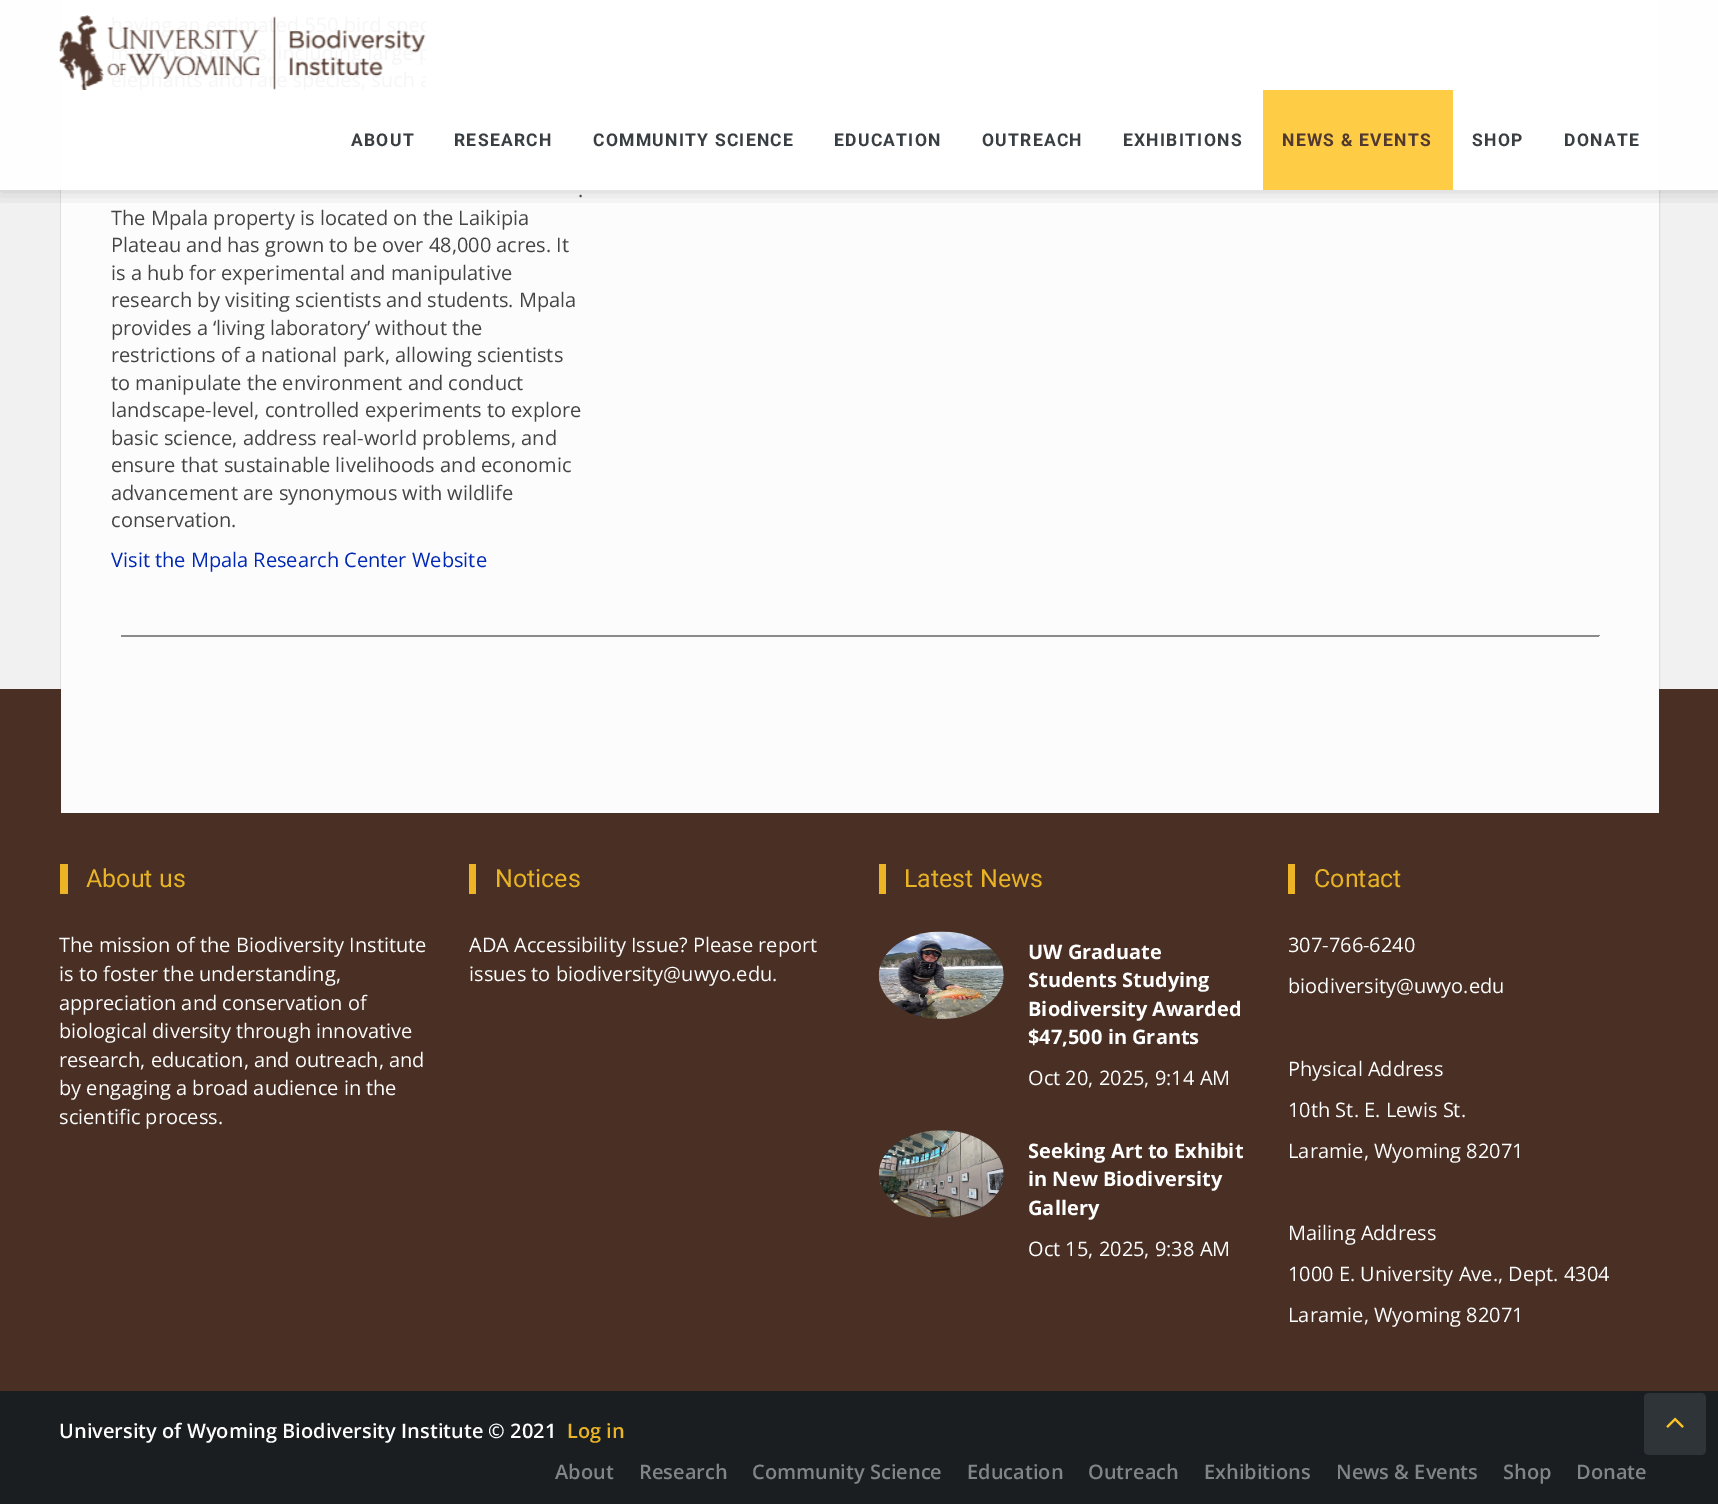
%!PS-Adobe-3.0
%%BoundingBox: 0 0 1718 1504
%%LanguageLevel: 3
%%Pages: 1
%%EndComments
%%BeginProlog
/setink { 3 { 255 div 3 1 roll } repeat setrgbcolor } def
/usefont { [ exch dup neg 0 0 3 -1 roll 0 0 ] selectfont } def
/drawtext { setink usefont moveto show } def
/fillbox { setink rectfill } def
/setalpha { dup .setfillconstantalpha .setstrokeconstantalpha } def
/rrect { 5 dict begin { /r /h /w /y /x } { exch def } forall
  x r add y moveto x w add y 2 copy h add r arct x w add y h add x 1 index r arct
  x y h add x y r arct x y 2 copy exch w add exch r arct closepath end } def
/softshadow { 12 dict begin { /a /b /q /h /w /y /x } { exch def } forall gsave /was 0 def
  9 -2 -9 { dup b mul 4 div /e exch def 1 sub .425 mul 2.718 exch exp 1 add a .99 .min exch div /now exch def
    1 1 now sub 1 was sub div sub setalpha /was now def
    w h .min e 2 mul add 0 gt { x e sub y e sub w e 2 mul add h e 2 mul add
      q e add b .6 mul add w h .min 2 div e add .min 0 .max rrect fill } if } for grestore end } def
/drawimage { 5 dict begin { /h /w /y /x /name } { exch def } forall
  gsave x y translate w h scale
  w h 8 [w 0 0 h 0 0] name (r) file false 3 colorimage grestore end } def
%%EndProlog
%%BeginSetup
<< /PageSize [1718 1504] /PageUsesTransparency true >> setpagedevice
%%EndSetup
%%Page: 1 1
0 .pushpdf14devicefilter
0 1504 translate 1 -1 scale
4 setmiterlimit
0 0 1718 1504 241 241 241 fillbox
222 222 222 setink
60.5 -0.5 1599 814 rectstroke
0 689 1718 702 73 47 36 fillbox
61 0 1598 813 252 252 252 fillbox
gsave
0 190 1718 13 rectclip
0 0 0 setink
0 1 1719 190 0 9.5 0.19 softshadow
grestore
0.95 setalpha
0 0 1718 190 255 255 255 fillbox
1 setalpha
(assets/img1.rgb) 59 15 367 75 drawimage
/Roboto-Bold 17.5 usefont
57 62 66 setink
351 146 moveto 1.25 0 (ABOUT) ashow
454 146 moveto 1.25 0 (RESEARCH) ashow
593 146 moveto 1.25 0 (COMMUNITY SCIENCE) ashow
834 146 moveto 1.25 0 (EDUCATION) ashow
982 146 moveto 1.25 0 (OUTREACH) ashow
1123 146 moveto 1.25 0 (EXHIBITIONS) ashow
1263 90 190 100 255 205 69 fillbox
82 57 47 setink
1282 146 moveto 1.25 0 (NEWS & EVENTS) ashow
57 62 66 setink
1472 146 moveto 1.25 0 (SHOP) ashow
1564 146 moveto 1.25 0 (DONATE) ashow
(.) 578 197 /OpenSans-Regular 20 68 68 68 drawtext
(The Mpala property is located on the Laikipia) 111 225 /OpenSans-Regular 20 68 68 68 drawtext
(Plateau and has grown to be over 48,000 acres. It) 111 252 /OpenSans-Regular 20 68 68 68 drawtext
(is a hub for experimental and manipulative) 111 280 /OpenSans-Regular 20 68 68 68 drawtext
(research by visiting scientists and students. Mpala) 111 307 /OpenSans-Regular 20 68 68 68 drawtext
(provides a ‘living laboratory’ without the) 111 335 /OpenSans-Regular 20 68 68 68 drawtext
(restrictions of a national park, allowing scientists) 111 362 /OpenSans-Regular 20 68 68 68 drawtext
(to manipulate the environment and conduct) 111 390 /OpenSans-Regular 20 68 68 68 drawtext
(landscape-level, controlled experiments to explore) 111 417 /OpenSans-Regular 20 68 68 68 drawtext
(basic science, address real-world problems, and) 111 445 /OpenSans-Regular 20 68 68 68 drawtext
(ensure that sustainable livelihoods and economic) 111 472 /OpenSans-Regular 20 68 68 68 drawtext
(advancement are synonymous with wildlife) 111 500 /OpenSans-Regular 20 68 68 68 drawtext
(conservation.) 111 527 /OpenSans-Regular 20 68 68 68 drawtext
(Visit the Mpala Research Center Website) 111 567 /OpenSans-Regular 20 0 40 179 drawtext
121 636 1478 1 140 139 139 fillbox
121 635 1479 1 140 139 139 fillbox
60 864 8 30 237 181 37 fillbox
(About us) 86 887 /Roboto-Regular 25 232 179 37 drawtext
(The mission of the Biodiversity Institute) 59 952 /OpenSans-Regular 20 255 255 255 drawtext
(is to foster the understanding,) 59 981 /OpenSans-Regular 20 255 255 255 drawtext
(appreciation and conservation of) 59 1010 /OpenSans-Regular 20 255 255 255 drawtext
(biological diversity through innovative) 59 1038 /OpenSans-Regular 20 255 255 255 drawtext
(research, education, and outreach, and) 59 1067 /OpenSans-Regular 20 255 255 255 drawtext
(by engaging a broad audience in the) 59 1095 /OpenSans-Regular 20 255 255 255 drawtext
(scientific process.) 59 1124 /OpenSans-Regular 20 255 255 255 drawtext
469 864 7 30 237 181 37 fillbox
(Notices) 495 887 /Roboto-Regular 25 232 179 37 drawtext
(ADA Accessibility Issue? Please report) 469 952 /OpenSans-Regular 20 255 255 255 drawtext
(issues to biodiversity@uwyo.edu.) 469 981 /OpenSans-Regular 20 255 255 255 drawtext
879 864 7 30 237 181 37 fillbox
(Latest News) 904 887 /Roboto-Regular 25 232 179 37 drawtext
(assets/img2.rgb) 878 931 126 88 drawimage
(UW Graduate) 1028 959 /OpenSans-Bold 20 255 255 255 drawtext
(Students Studying) 1028 987 /OpenSans-Bold 20 255 255 255 drawtext
(Biodiversity Awarded) 1028 1016 /OpenSans-Bold 20 255 255 255 drawtext
($47,500 in Grants) 1028 1044 /OpenSans-Bold 20 255 255 255 drawtext
(Oct 20, 2025, 9:14 AM) 1028 1085 /OpenSans-Regular 20 255 255 255 drawtext
(assets/img3.rgb) 878 1130 126 88 drawimage
(Seeking Art to Exhibit) 1028 1158 /OpenSans-Bold 20 255 255 255 drawtext
(in New Biodiversity) 1028 1186 /OpenSans-Bold 20 255 255 255 drawtext
(Gallery) 1028 1215 /OpenSans-Bold 20 255 255 255 drawtext
(Oct 15, 2025, 9:38 AM) 1028 1256 /OpenSans-Regular 20 255 255 255 drawtext
1288 864 7 30 237 181 37 fillbox
(Contact) 1314 887 /Roboto-Regular 25 232 179 37 drawtext
(307-766-6240) 1288 952 /OpenSans-Regular 20 255 255 255 drawtext
(biodiversity@uwyo.edu) 1288 993 /OpenSans-Regular 20 255 255 255 drawtext
(Physical Address) 1288 1076 /OpenSans-Regular 20 255 255 255 drawtext
(10th St. E. Lewis St.) 1288 1117 /OpenSans-Regular 20 255 255 255 drawtext
(Laramie, Wyoming 82071) 1288 1158 /OpenSans-Regular 20 255 255 255 drawtext
(Mailing Address) 1288 1240 /OpenSans-Regular 20 255 255 255 drawtext
(1000 E. University Ave., Dept. 4304) 1288 1281 /OpenSans-Regular 20 255 255 255 drawtext
(Laramie, Wyoming 82071) 1288 1322 /OpenSans-Regular 20 255 255 255 drawtext
0 1391 1718 113 26 30 33 fillbox
(University of Wyoming Biodiversity Institute © 2021) 59 1438 /OpenSans-SemiBold 20 255 255 255 drawtext
(Log in) 567 1438 /OpenSans-SemiBold 20 232 179 37 drawtext
(About) 555 1479 /OpenSans-SemiBold 20 128 134 135 drawtext
(Research) 639 1479 /OpenSans-SemiBold 20 128 134 135 drawtext
(Community Science) 752 1479 /OpenSans-SemiBold 20 128 134 135 drawtext
(Education) 967 1479 /OpenSans-SemiBold 20 128 134 135 drawtext
(Outreach) 1088 1479 /OpenSans-SemiBold 20 128 134 135 drawtext
(Exhibitions) 1204 1479 /OpenSans-SemiBold 20 128 134 135 drawtext
(News & Events) 1336 1479 /OpenSans-SemiBold 20 128 134 135 drawtext
(Shop) 1503 1479 /OpenSans-SemiBold 20 128 134 135 drawtext
(Donate) 1576 1479 /OpenSans-SemiBold 20 128 134 135 drawtext
47 52 56 setink
1644 1393 62 62 5 rrect fill
(assets/img4.rgb) 1666 1417 18 11 drawimage
.poppdf14devicefilter showpage
%%EOF
